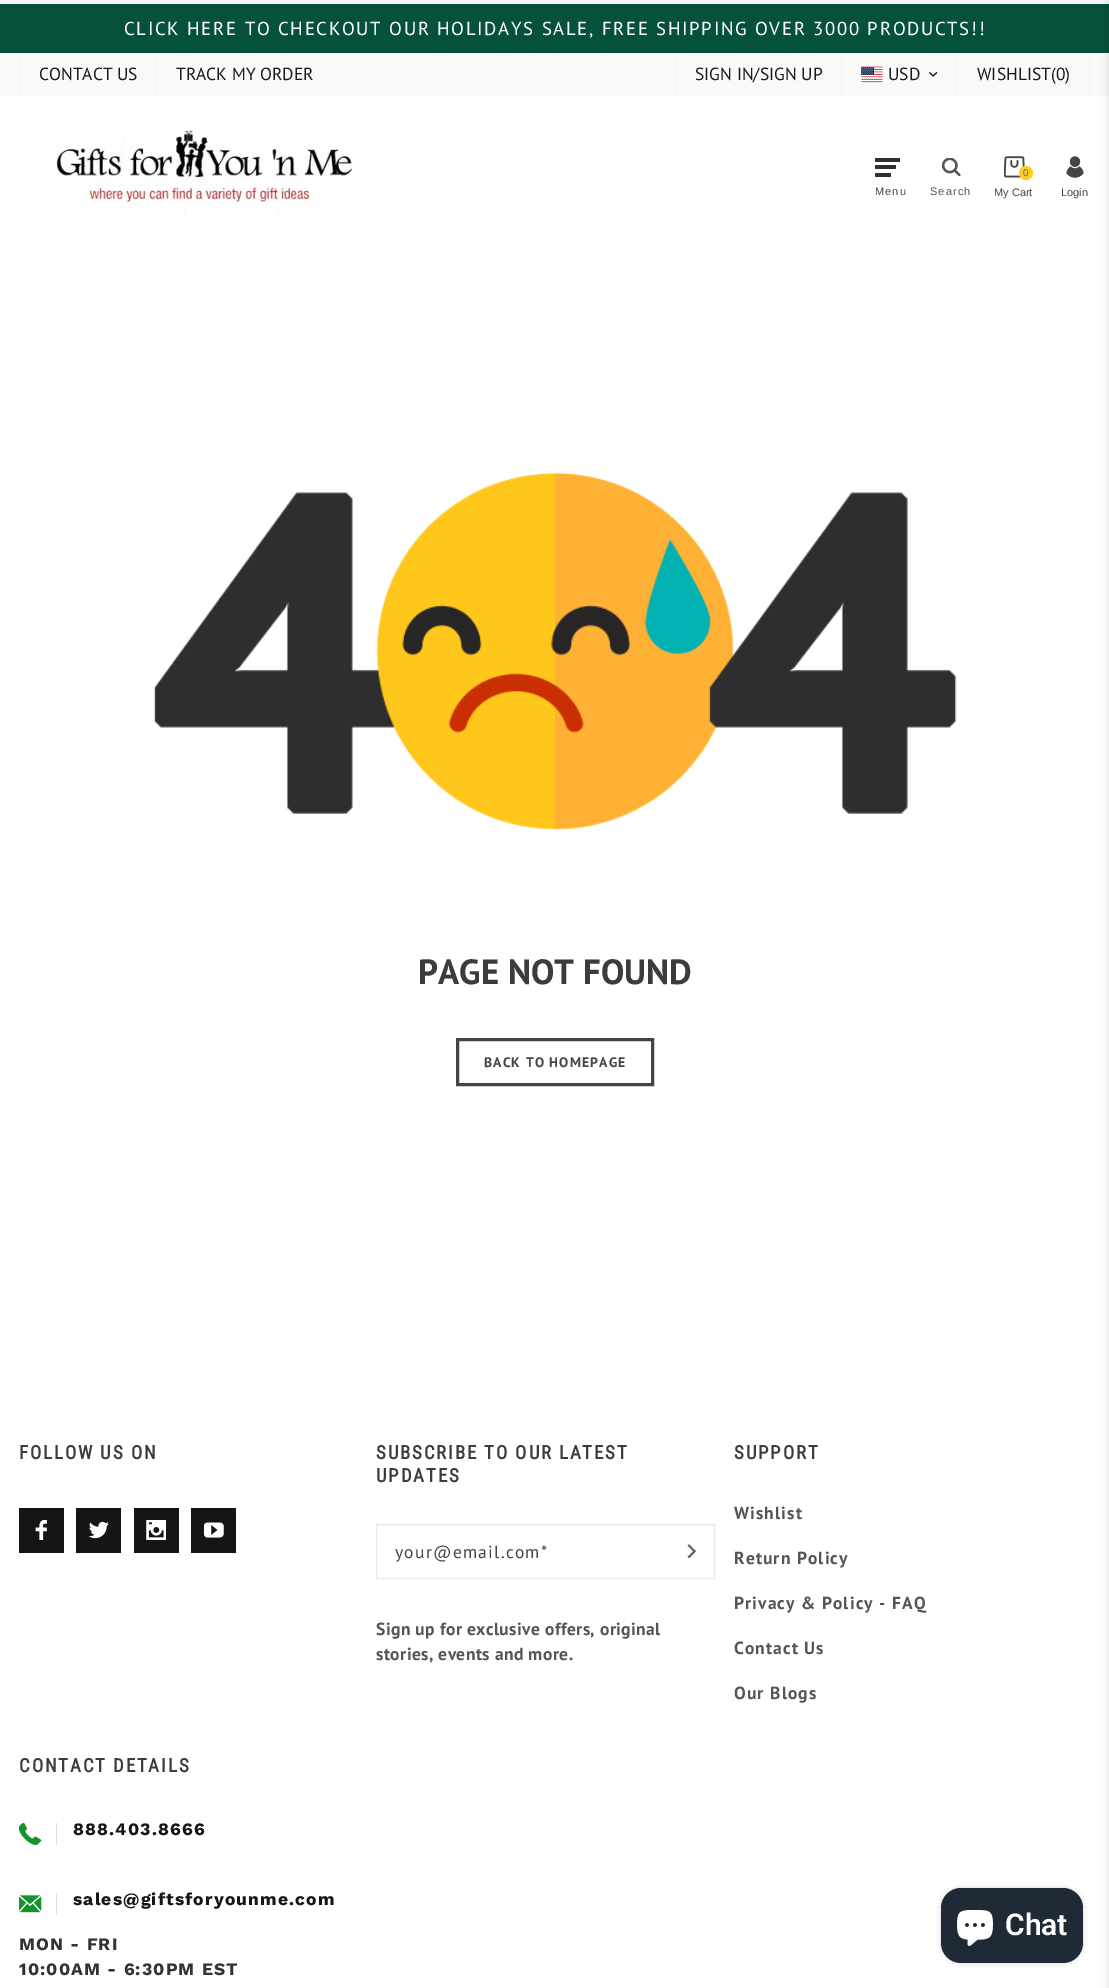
%!PS-Adobe-3.0
%%BoundingBox: 0 0 1109 1988
%%LanguageLevel: 3
%%Pages: 1
%%EndComments
%%BeginProlog
/setink { 3 { 255 div 3 1 roll } repeat setrgbcolor } def
/usefont { [ exch dup neg 0 0 3 -1 roll 0 0 ] selectfont } def
/drawtext { setink usefont moveto show } def
/fillbox { setink rectfill } def
/setalpha { dup .setfillconstantalpha .setstrokeconstantalpha } def
/disc { newpath 0 360 arc closepath } def
/rrect { 5 dict begin { /r /h /w /y /x } { exch def } forall
  x r add y moveto x w add y 2 copy h add r arct x w add y h add x 1 index r arct
  x y h add x y r arct x y 2 copy exch w add exch r arct closepath end } def
/softshadow { 12 dict begin { /a /b /q /h /w /y /x } { exch def } forall gsave /was 0 def
  9 -2 -9 { dup b mul 4 div /e exch def 1 sub .425 mul 2.718 exch exp 1 add a .99 .min exch div /now exch def
    1 1 now sub 1 was sub div sub setalpha /was now def
    w h .min e 2 mul add 0 gt { x e sub y e sub w e 2 mul add h e 2 mul add
      q e add b .6 mul add w h .min 2 div e add .min 0 .max rrect fill } if } for grestore end } def
/drawimage { 5 dict begin { /h /w /y /x /name } { exch def } forall
  gsave x y translate w h scale
  w h 8 [w 0 0 h 0 0] name (r) file false 3 colorimage grestore end } def
%%EndProlog
%%BeginSetup
<< /PageSize [1109 1988] /PageUsesTransparency true >> setpagedevice
%%EndSetup
%%Page: 1 1
0 .pushpdf14devicefilter
0 1988 translate 1 -1 scale
4 setmiterlimit
0 0 1109 1988 255 255 255 fillbox
0 53 1109 43 249 249 249 fillbox
0 0 1109 4 244 244 244 fillbox
0 4 1109 49 6 81 61 fillbox
/PTSans-Regular 18.75 usefont
255 255 255 setink
124 35 moveto 1.7 0 (CLICK HERE TO CHECKOUT OUR HOLIDAYS SALE, FREE SHIPPING OVER 3000 PRODUCTS!!) ashow
156 53 1 43 244 244 244 fillbox
19 53 1 43 244 244 244 fillbox
(CONTACT US) 39 80 /PTSans-Regular 17.5 22 25 29 drawtext
333 53 1 43 244 244 244 fillbox
(TRACK MY ORDER) 176 80 /PTSans-Regular 17.5 22 25 29 drawtext
841 53 1 43 244 244 244 fillbox
675 53 1 43 244 244 244 fillbox
(SIGN IN/SIGN UP) 695 80 /PTSans-Regular 17.5 22 25 29 drawtext
956 53 1 43 244 244 244 fillbox
(assets/img1.rgb) 861 66 22 17 drawimage
(USD) 888 80 /PTSans-Regular 17.5 22 25 29 drawtext
(assets/img2.rgb) 929 72 9 5 drawimage
1089 53 1 43 244 244 244 fillbox
(WISHLIST\(0\)) 977 80 /PTSans-Regular 17.5 22 25 29 drawtext
0 0 0 setink
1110 3 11 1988 0 4 0.2 softshadow
(assets/img3.rgb) 54 128 299 88 drawimage
49 46 46 setink
875 158 25 4 1 rrect fill
875 165 21 4 1 rrect fill
875 173 16 4 1 rrect fill
/LiberationSans-Regular 11 usefont
68 68 68 setink
875 195 moveto 1.1 0 (Menu) ashow
(assets/img4.rgb) 941 158 20 18 drawimage
85 85 85 setink
930 195 moveto 1.1 0 (Search) ashow
(assets/img5.rgb) 1004 156 21 22 drawimage
255 206 38 setink
1026 173 7 disc fill
(0) 1023 176 /LiberationSans-Regular 10 101 101 101 drawtext
(My Cart) 994 196 /LiberationSans-Regular 11 68 68 68 drawtext
(assets/img6.rgb) 1066 156 18 22 drawimage
(Login) 1061 196 /LiberationSans-Regular 11 68 68 68 drawtext
(assets/img7.rgb) 153 472 804 358 drawimage
(PAGE NOT FOUND) 418 984 /PTSans-Bold 35 60 60 60 drawtext
68 68 68 setink
3 setlinewidth
457.5 1039.5 195 45 rectstroke
/PTSans-Bold 13.75 usefont
484 1067 moveto 1.1 0 (BACK TO HOMEPAGE) ashow
/RobotoCondensed-Bold 18.75 usefont
60 60 60 setink
19 1459 moveto 1.9 0 (FOLLOW US ON) ashow
19 1508 45 45 20 22 21 fillbox
(assets/img8.rgb) 35 1520 12 20 drawimage
76 1508 45 45 20 22 21 fillbox
(assets/img9.rgb) 89 1521 20 18 drawimage
134 1508 45 45 20 22 21 fillbox
(assets/img10.rgb) 146 1520 20 20 drawimage
191 1508 45 45 20 22 21 fillbox
(assets/img11.rgb) 204 1522 20 16 drawimage
60 60 60 setink
376 1459 moveto 1.9 0 (SUBSCRIBE TO OUR LATEST) ashow
376 1482 moveto 1.9 0 (UPDATES) ashow
233 233 233 setink
1 setlinewidth
376.5 1524.5 338 54 rectstroke
/PTSans-Regular 17.5 usefont
68 68 68 setink
395 1558 moveto 1.25 0 (your@email.com*) ashow
(assets/img12.rgb) 687 1544 9 15 drawimage
/PTSans-Bold 17.5 usefont
85 85 85 setink
376 1635 moveto 0.4 0 (Sign up for exclusive offers, original) ashow
376 1660 moveto 0.4 0 (stories, events and more.) ashow
/RobotoCondensed-Bold 18.75 usefont
60 60 60 setink
734 1459 moveto 1.9 0 (SUPPORT) ashow
/PTSans-Bold 17.5 usefont
85 85 85 setink
734 1519 moveto 1.1 0 (Wishlist) ashow
734 1564 moveto 1.1 0 (Return Policy) ashow
734 1609 moveto 1.1 0 (Privacy & Policy - FAQ) ashow
734 1654 moveto 1.1 0 (Contact Us) ashow
734 1699 moveto 1.1 0 (Our Blogs) ashow
/RobotoCondensed-Bold 18.75 usefont
60 60 60 setink
19 1772 moveto 1.9 0 (CONTACT DETAILS) ashow
56 1823 1 22 216 222 226 fillbox
(assets/img13.rgb) 19 1823 23 22 drawimage
/WorkSans-Bold 17.5 usefont
20 22 21 setink
73 1835 moveto 1.1 0 (888.403.8666) ashow
56 1893 1 22 216 222 226 fillbox
(assets/img14.rgb) 19 1895 23 18 drawimage
20 22 21 setink
73 1905 moveto 1.1 0 (sales@giftsforyounme.com) ashow
51 51 51 setink
19 1950 moveto 1.1 0 (MON - FRI) ashow
19 1975 moveto 1.1 0 (10:00AM - 6:30PM EST) ashow
0 0 0 setink
941 1888 142 75 20 3 0.15 softshadow
32 42 54 setink
941 1888 142 75 20 rrect fill
(assets/img15.rgb) 957 1910 36 36 drawimage
(Chat) 1005 1935 /Roboto-SemiBold 30 255 255 255 drawtext
.poppdf14devicefilter showpage
%%EOF
